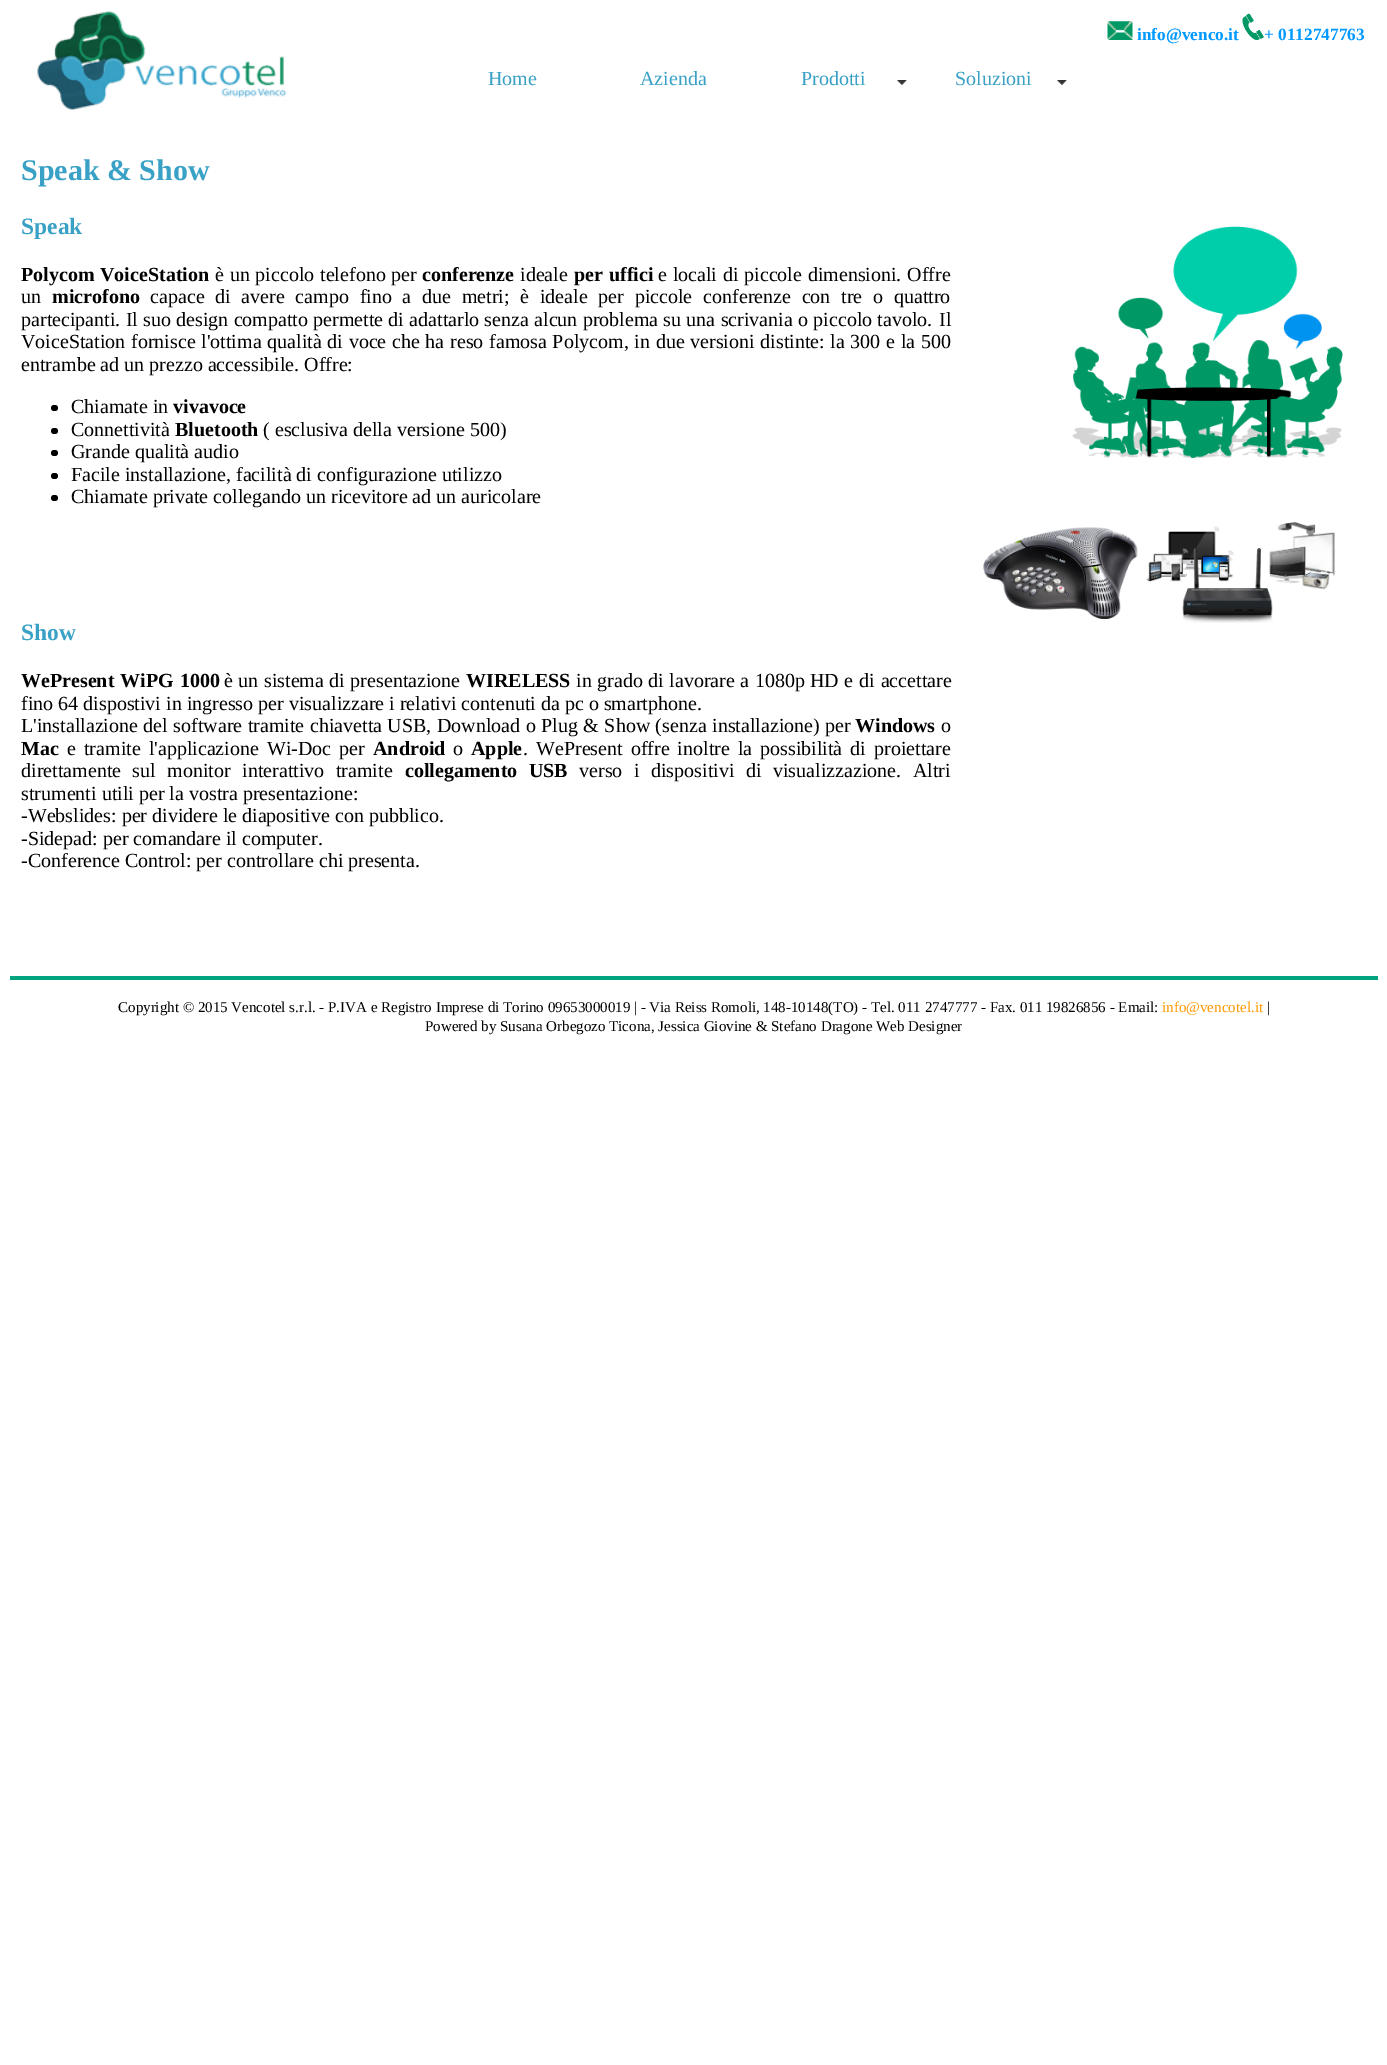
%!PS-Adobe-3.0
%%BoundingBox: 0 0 1387 2065
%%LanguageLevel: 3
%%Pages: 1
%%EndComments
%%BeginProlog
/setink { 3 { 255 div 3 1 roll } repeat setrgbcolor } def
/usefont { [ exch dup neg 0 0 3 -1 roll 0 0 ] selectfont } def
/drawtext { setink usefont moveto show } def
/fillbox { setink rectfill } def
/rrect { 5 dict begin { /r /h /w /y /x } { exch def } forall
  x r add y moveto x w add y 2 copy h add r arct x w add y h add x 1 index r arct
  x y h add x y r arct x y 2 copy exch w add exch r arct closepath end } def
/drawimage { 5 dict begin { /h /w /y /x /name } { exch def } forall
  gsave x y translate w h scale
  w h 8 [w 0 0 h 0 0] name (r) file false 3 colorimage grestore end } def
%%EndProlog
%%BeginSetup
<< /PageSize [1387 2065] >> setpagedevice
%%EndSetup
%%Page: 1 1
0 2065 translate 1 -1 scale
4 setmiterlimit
0 0 1387 2065 255 255 255 fillbox
(assets/img1.rgb) 37 11 250 99 drawimage
(assets/img2.rgb) 1107 21 26 19 drawimage
(info@venco.it) 1137 40 /LiberationSerif-Bold 17.25 0 153 255 drawtext
(assets/img3.rgb) 1242 13 22 27 drawimage
(+ 0112747763) 1264 40 /LiberationSerif-Bold 17.25 0 153 255 drawtext
(Home) 488 85 /LiberationSerif-Regular 20 57 161 198 drawtext
(Azienda) 640 85 /LiberationSerif-Regular 20 57 161 198 drawtext
(assets/img4.rgb) 897 80 10 5 drawimage
(Prodotti) 801 85 /LiberationSerif-Regular 20 57 161 198 drawtext
(assets/img5.rgb) 1057 80 10 5 drawimage
(Soluzioni) 955 85 /LiberationSerif-Regular 20 57 161 198 drawtext
(Speak & Show) 21 180 /LiberationSerif-Bold 30 57 161 198 drawtext
(Speak) 21 234 /LiberationSerif-Bold 23.5 57 161 198 drawtext
/LiberationSerif-Bold 20 usefont
0 0 0 setink
21 281 moveto 0.75 0 32 (Polycom VoiceStation) widthshow
/LiberationSerif-Regular 20 usefont
215 281 moveto 0.75 0 32 (è un piccolo telefono per) widthshow
(conferenze) 422 281 /LiberationSerif-Bold 20 0 0 0 drawtext
(ideale) 520 281 /LiberationSerif-Regular 20 0 0 0 drawtext
/LiberationSerif-Bold 20 usefont
574 281 moveto 1 0 32 (per uffici) widthshow
/LiberationSerif-Regular 20 usefont
658 281 moveto 0.75 0 32 (e locali di piccole dimensioni. Offre) widthshow
(un) 21 303 /LiberationSerif-Regular 20 0 0 0 drawtext
(microfono) 52 303 /LiberationSerif-Bold 20 0 0 0 drawtext
/LiberationSerif-Regular 20 usefont
150 303 moveto 5.75 0 32 (capace di avere campo fino a due metri; è ideale per piccole conferenze con tre o quattro) widthshow
21 326 moveto 0.25 0 32 (partecipanti. Il suo design compatto permette di adattarlo senza alcun problema su una scrivania o piccolo tavolo.) widthshow
(Il) 939 326 /LiberationSerif-Regular 20 0 0 0 drawtext
21 348 moveto 0.7 0 32 (VoiceStation fornisce l'ottima qualità di voce che ha reso famosa Polycom, in due versioni distinte: la 300 e la 500) widthshow
(entrambe ad un prezzo accessibile. Offre:) 21 371 /LiberationSerif-Regular 20 0 0 0 drawtext
51 405 7 6 3 rrect fill
(Chiamate in) 71 413 /LiberationSerif-Regular 20 0 0 0 drawtext
(vivavoce) 173 413 /LiberationSerif-Bold 20 0 0 0 drawtext
51 428 7 6 3 rrect fill
(Connettività) 71 436 /LiberationSerif-Regular 20 0 0 0 drawtext
(Bluetooth) 175 436 /LiberationSerif-Bold 20 0 0 0 drawtext
(\( esclusiva della versione 500\)) 263 436 /LiberationSerif-Regular 20 0 0 0 drawtext
51 450 7 6 3 rrect fill
(Grande qualità audio) 71 458 /LiberationSerif-Regular 20 0 0 0 drawtext
51 473 7 6 3 rrect fill
(Facile installazione, facilità di configurazione utilizzo) 71 481 /LiberationSerif-Regular 20 0 0 0 drawtext
51 495 7 6 3 rrect fill
(Chiamate private collegando un ricevitore ad un auricolare) 71 503 /LiberationSerif-Regular 20 0 0 0 drawtext
(Show) 21 640 /LiberationSerif-Bold 23.5 57 161 198 drawtext
/LiberationSerif-Bold 20 usefont
0 0 0 setink
21 687 moveto 1 0 32 (WePresent WiPG 1000) widthshow
/LiberationSerif-Regular 20 usefont
224 687 moveto 0.5 0 32 (è un sistema di presentazione) widthshow
(WIRELESS) 466 687 /LiberationSerif-Bold 20 0 0 0 drawtext
/LiberationSerif-Regular 20 usefont
576 687 moveto 0.5 0 32 (in grado di lavorare a 1080p HD e) widthshow
859 687 moveto 1 0 32 (di accettare) widthshow
(fino 64 dispostivi in ingresso per visualizzare i relativi contenuti da pc o smartphone.) 21 710 /LiberationSerif-Regular 20 0 0 0 drawtext
21 732 moveto 0.5 0 32 (L'installazione del software tramite chiavetta USB, Download o Plug & Show \(senza installazione\) per) widthshow
(Windows) 855 732 /LiberationSerif-Bold 20 0 0 0 drawtext
(o) 941 732 /LiberationSerif-Regular 20 0 0 0 drawtext
(Mac) 21 755 /LiberationSerif-Bold 20 0 0 0 drawtext
/LiberationSerif-Regular 20 usefont
67 755 moveto 3 0 32 (e tramite l'applicazione Wi-Doc per) widthshow
(Android) 373 755 /LiberationSerif-Bold 20 0 0 0 drawtext
(o) 453 755 /LiberationSerif-Regular 20 0 0 0 drawtext
(Apple) 471 755 /LiberationSerif-Bold 20 0 0 0 drawtext
(.) 523 755 /LiberationSerif-Regular 20 0 0 0 drawtext
536 755 moveto 3 0 32 (WePresent offre inoltre la possibilità di proiettare) widthshow
21 777 moveto 6.5 0 32 (direttamente sul monitor interattivo tramite) widthshow
/LiberationSerif-Bold 20 usefont
405 777 moveto 6.5 0 32 (collegamento USB) widthshow
/LiberationSerif-Regular 20 usefont
579 777 moveto 6.5 0 32 (verso i dispositivi di visualizzazione. Altri) widthshow
(strumenti utili per la vostra presentazione:) 21 800 /LiberationSerif-Regular 20 0 0 0 drawtext
(-Webslides: per dividere le diapositive con pubblico.) 21 822 /LiberationSerif-Regular 20 0 0 0 drawtext
(-Sidepad: per comandare il computer.) 21 845 /LiberationSerif-Regular 20 0 0 0 drawtext
(-Conference Control: per controllare chi presenta.) 21 867 /LiberationSerif-Regular 20 0 0 0 drawtext
(assets/img6.rgb) 1072 226 271 233 drawimage
(assets/img7.rgb) 983 527 155 92 drawimage
(assets/img8.rgb) 1146 522 189 101 drawimage
10 976 1368 4 0 165 127 fillbox
(Copyright © 2015 Vencotel s.r.l. - P.IVA e Registro Imprese di Torino 09653000019 | - Via Reiss Romoli, 148-10148\(TO\) - Tel. 011 2747777 - Fax. 011 19826856 - Email:) 118 1012 /LiberationSerif-Regular 15 0 0 0 drawtext
(info@vencotel.it) 1162 1012 /LiberationSerif-Regular 15 255 153 0 drawtext
(|) 1267 1012 /LiberationSerif-Regular 15 0 0 0 drawtext
(Powered by Susana Orbegozo Ticona, Jessica Giovine & Stefano Dragone Web Designer) 425 1031 /LiberationSerif-Regular 15 0 0 0 drawtext
showpage
%%EOF
